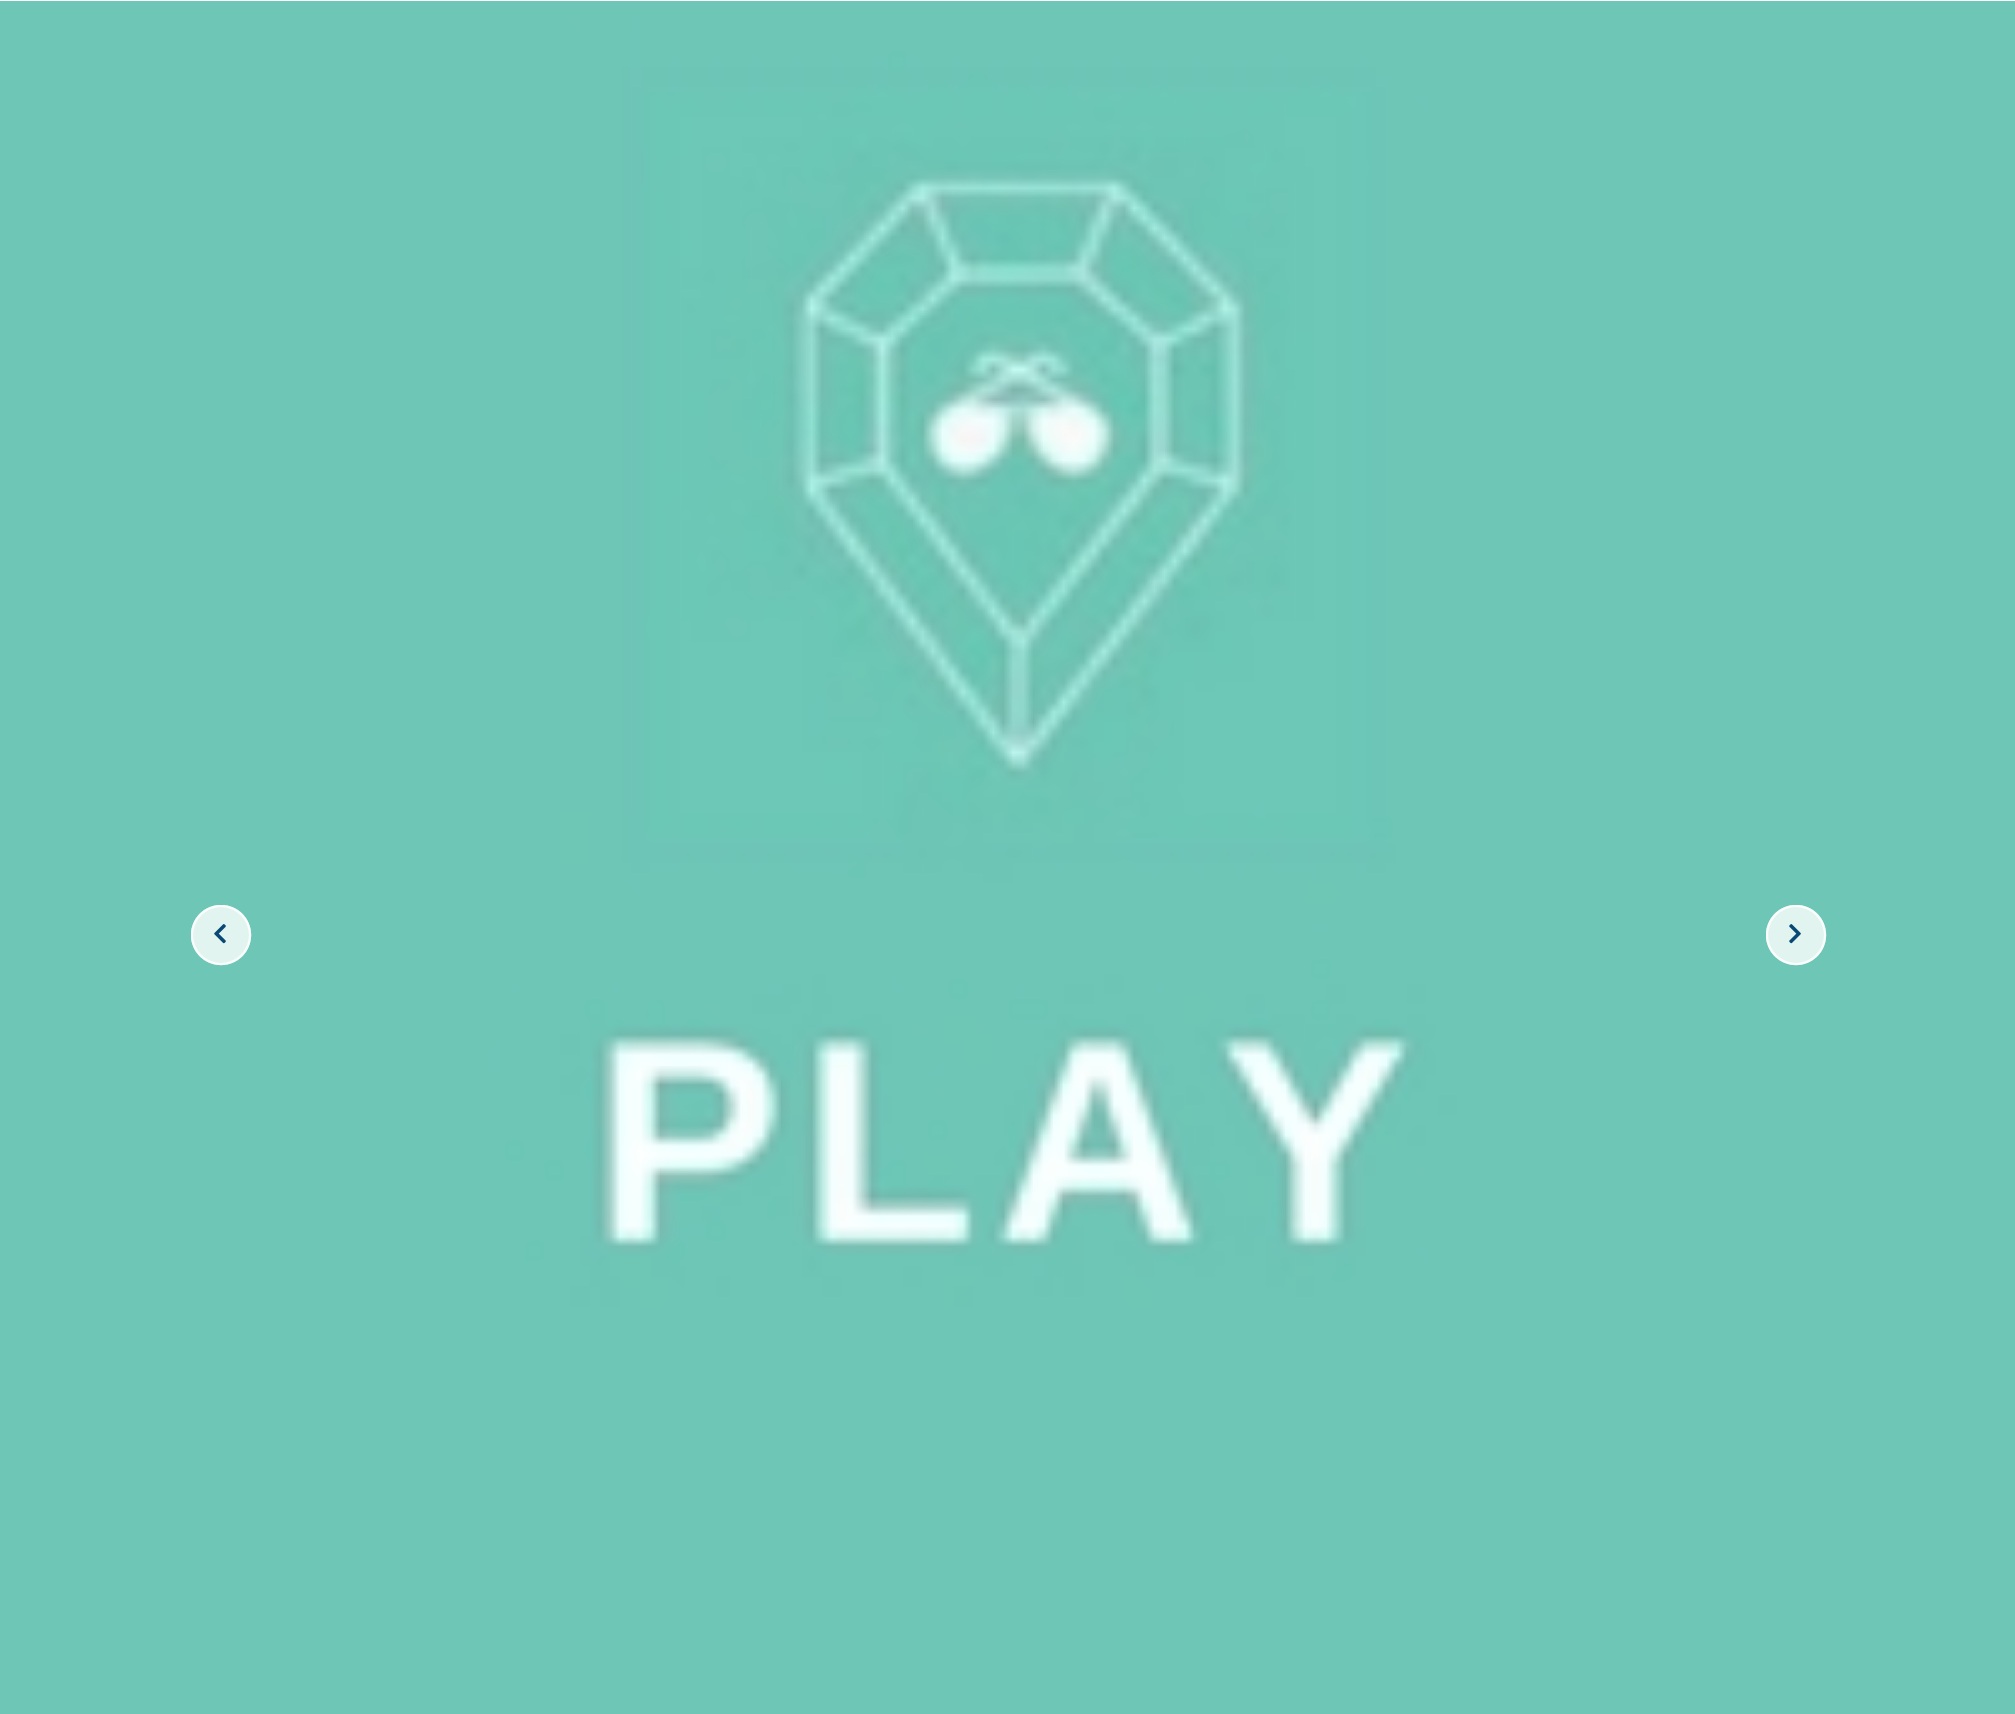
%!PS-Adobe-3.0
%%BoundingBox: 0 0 2015 1714
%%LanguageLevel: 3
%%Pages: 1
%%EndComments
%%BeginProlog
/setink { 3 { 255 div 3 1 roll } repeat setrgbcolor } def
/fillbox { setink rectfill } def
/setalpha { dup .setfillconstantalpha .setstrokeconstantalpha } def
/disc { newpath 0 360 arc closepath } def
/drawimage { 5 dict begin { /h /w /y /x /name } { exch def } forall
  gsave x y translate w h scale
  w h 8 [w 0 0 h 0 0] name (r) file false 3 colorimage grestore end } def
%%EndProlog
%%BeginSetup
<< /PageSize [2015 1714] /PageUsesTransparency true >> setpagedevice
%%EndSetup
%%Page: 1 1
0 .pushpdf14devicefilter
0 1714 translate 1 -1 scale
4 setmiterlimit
0 0 2015 1714 255 255 255 fillbox
(assets/img1.rgb) 0 1 2015 1713 drawimage
226 244 240 setink
221 935 30 disc fill
0.8 setalpha
255 255 255 setink
2 setlinewidth
221 935 29 disc stroke
1 setalpha
(assets/img2.rgb) 214 924 12 20 drawimage
226 244 240 setink
1796 935 30 disc fill
0.8 setalpha
255 255 255 setink
1796 935 29 disc stroke
1 setalpha
(assets/img3.rgb) 1789 924 12 20 drawimage
.poppdf14devicefilter showpage
%%EOF
